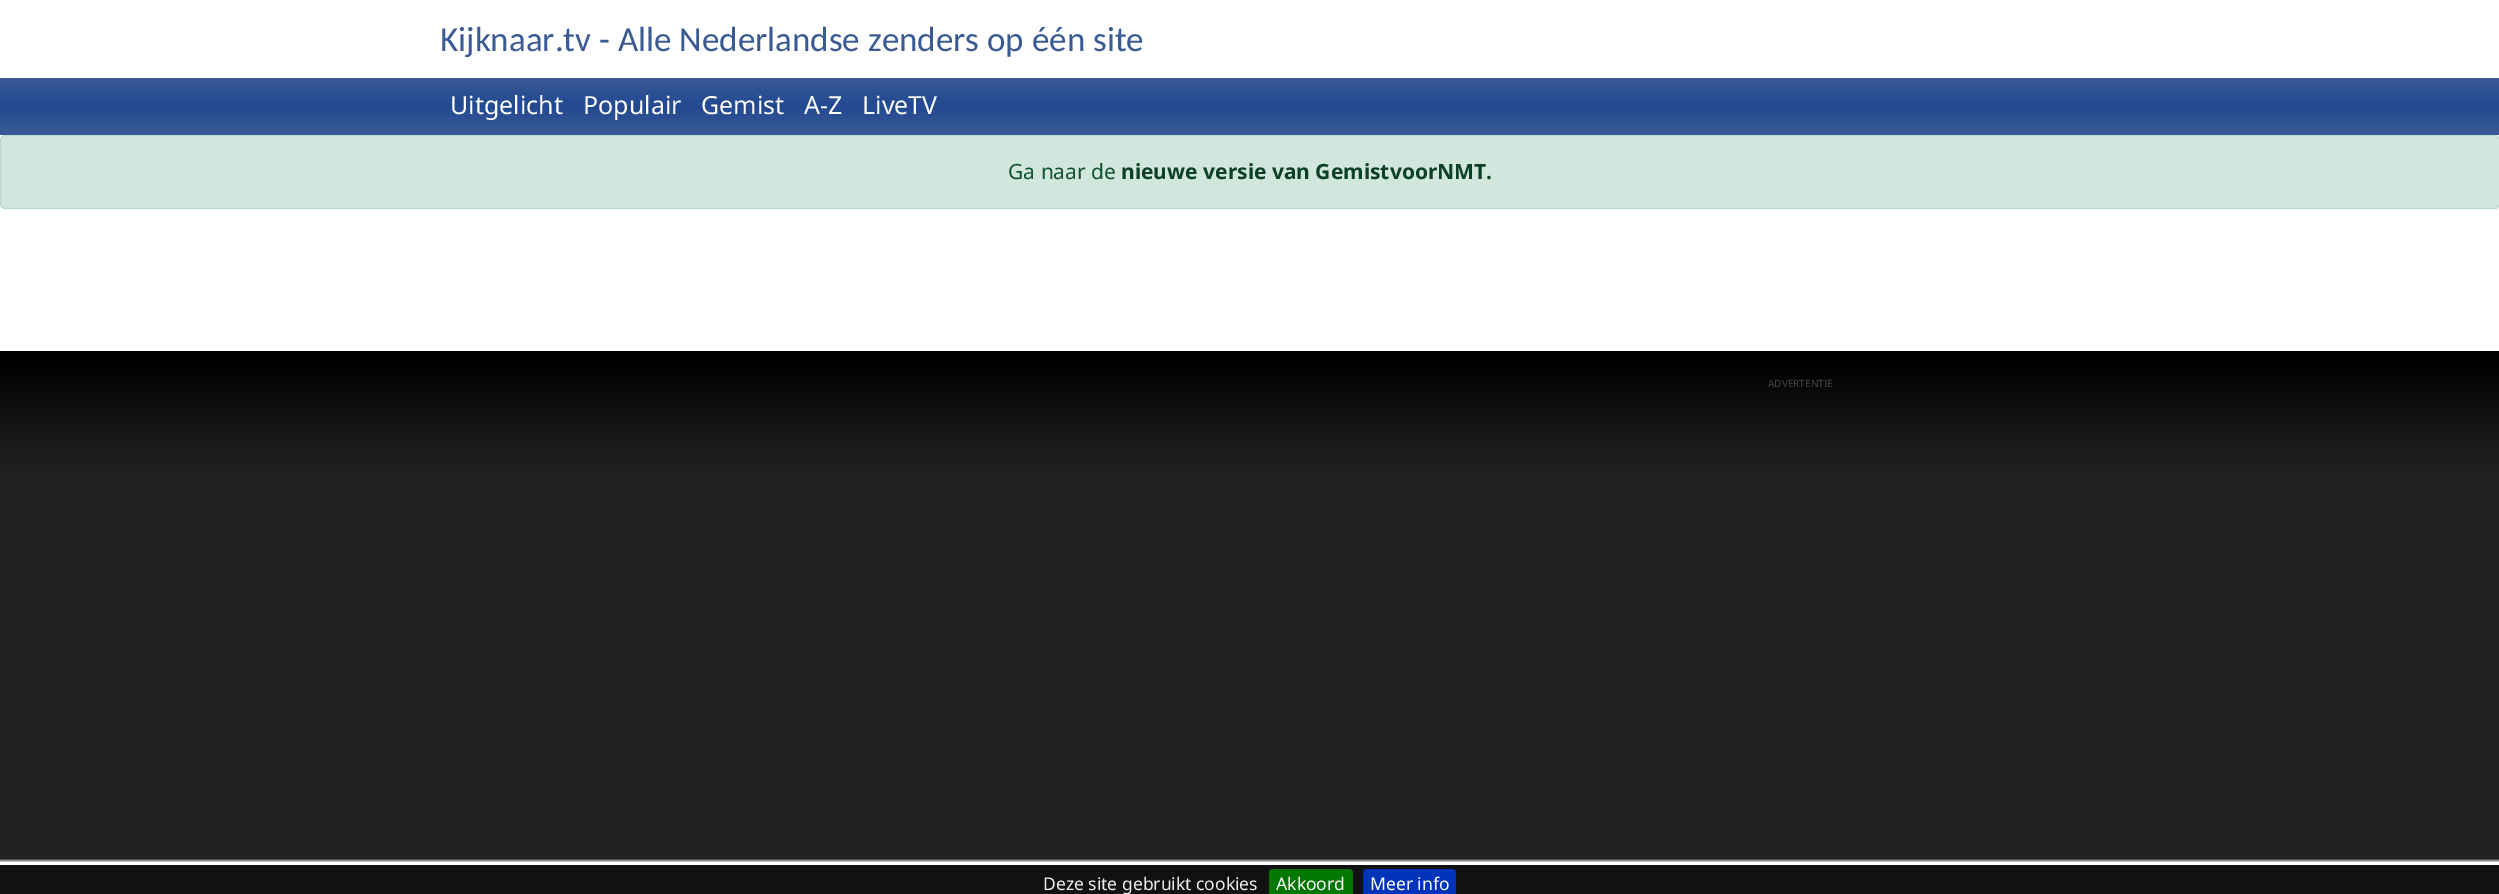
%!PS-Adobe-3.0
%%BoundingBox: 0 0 2499 894
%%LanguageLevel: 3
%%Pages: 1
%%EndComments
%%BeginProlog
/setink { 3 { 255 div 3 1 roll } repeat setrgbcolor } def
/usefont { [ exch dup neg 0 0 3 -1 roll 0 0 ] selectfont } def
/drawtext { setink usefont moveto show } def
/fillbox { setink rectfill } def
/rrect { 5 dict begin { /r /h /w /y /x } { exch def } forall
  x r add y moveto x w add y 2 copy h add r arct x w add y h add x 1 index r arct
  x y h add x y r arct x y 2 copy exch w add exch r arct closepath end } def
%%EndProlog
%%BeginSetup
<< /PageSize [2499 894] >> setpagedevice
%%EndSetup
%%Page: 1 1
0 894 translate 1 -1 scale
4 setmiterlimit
0 0 2499 894 255 255 255 fillbox
(Kijknaar.tv - Alle Nederlandse zenders op één site) 440 51 /Carlito-Regular 35 58 90 148 drawtext
gsave 0 78 moveto 2499 78 lineto 2499 135 lineto 0 135 lineto closepath clip newpath
<< /ShadingType 2 /ColorSpace /DeviceRGB /Coords [1250 77 1250 135] /Extend [true true] /Function << /FunctionType 3 /Domain [0 1] /Functions [<< /FunctionType 2 /Domain [0 1] /C0 [0.227 0.353 0.58] /C1 [0.137 0.286 0.573] /N 1 >> << /FunctionType 2 /Domain [0 1] /C0 [0.137 0.286 0.573] /C1 [0.227 0.353 0.58] /N 1 >>] /Bounds [0.5] /Encode [0 1 0 1] >> >> shfill grestore
(Uitgelicht) 450 114 /NotoSans-Regular 25 255 255 255 drawtext
(Populair) 583 114 /NotoSans-Regular 25 255 255 255 drawtext
(Gemist) 701 114 /NotoSans-Regular 25 255 255 255 drawtext
(A-Z) 804 114 /NotoSans-Regular 25 255 255 255 drawtext
(LiveTV) 862 114 /NotoSans-Regular 25 255 255 255 drawtext
209 231 221 setink
0.5 135.5 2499 73 4.5 rrect gsave fill grestore
186 219 204 setink
stroke
(Ga naar de) 1008 179 /NotoSans-Regular 21 15 81 50 drawtext
(nieuwe versie van GemistvoorNMT.) 1121 179 /NotoSans-Bold 21 12 65 40 drawtext
gsave 0 351 moveto 2499 351 lineto 2499 859 lineto 0 859 lineto closepath clip newpath
<< /ShadingType 2 /ColorSpace /DeviceRGB /Coords [1250 351 1250 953] /Extend [true true] /Function << /FunctionType 3 /Domain [0 1] /Functions [<< /FunctionType 2 /Domain [0 1] /C0 [0 0 0] /C1 [0 0 0] /N 1 >> << /FunctionType 2 /Domain [0 1] /C0 [0 0 0] /C1 [0.129 0.129 0.129] /N 1 >> << /FunctionType 2 /Domain [0 1] /C0 [0.129 0.129 0.129] /C1 [0.129 0.129 0.129] /N 1 >>] /Bounds [0.01 0.2] /Encode [0 1 0 1 0 1] >> >> shfill grestore
(ADVERTENTIE) 1768 387 /NotoSans-Regular 10 68 68 68 drawtext
gsave 0 859 moveto 2499 859 lineto 2499 863 lineto 0 863 lineto closepath clip newpath
<< /ShadingType 2 /ColorSpace /DeviceRGB /Coords [1250 859 1250 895] /Extend [true true] /Function << /FunctionType 3 /Domain [0 1] /Functions [<< /FunctionType 2 /Domain [0 1] /C0 [0.216 0.216 0.216] /C1 [1 1 1] /N 1 >> << /FunctionType 2 /Domain [0 1] /C0 [1 1 1] /C1 [1 1 1] /N 1 >>] /Bounds [0.1] /Encode [0 1 0 1] >> >> shfill grestore
0 865 2499 29 17 17 17 fillbox
(Deze site gebruikt cookies) 1043 890 /NotoSans-Regular 17.5 238 238 238 drawtext
0 119 0 setink
1269 869 84 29 4 rrect fill
(Akkoord) 1276 890 /NotoSans-Regular 17.5 255 255 255 drawtext
0 51 187 setink
1363 869 93 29 4 rrect fill
(Meer info) 1370 890 /NotoSans-Regular 17.5 255 255 255 drawtext
showpage
%%EOF
